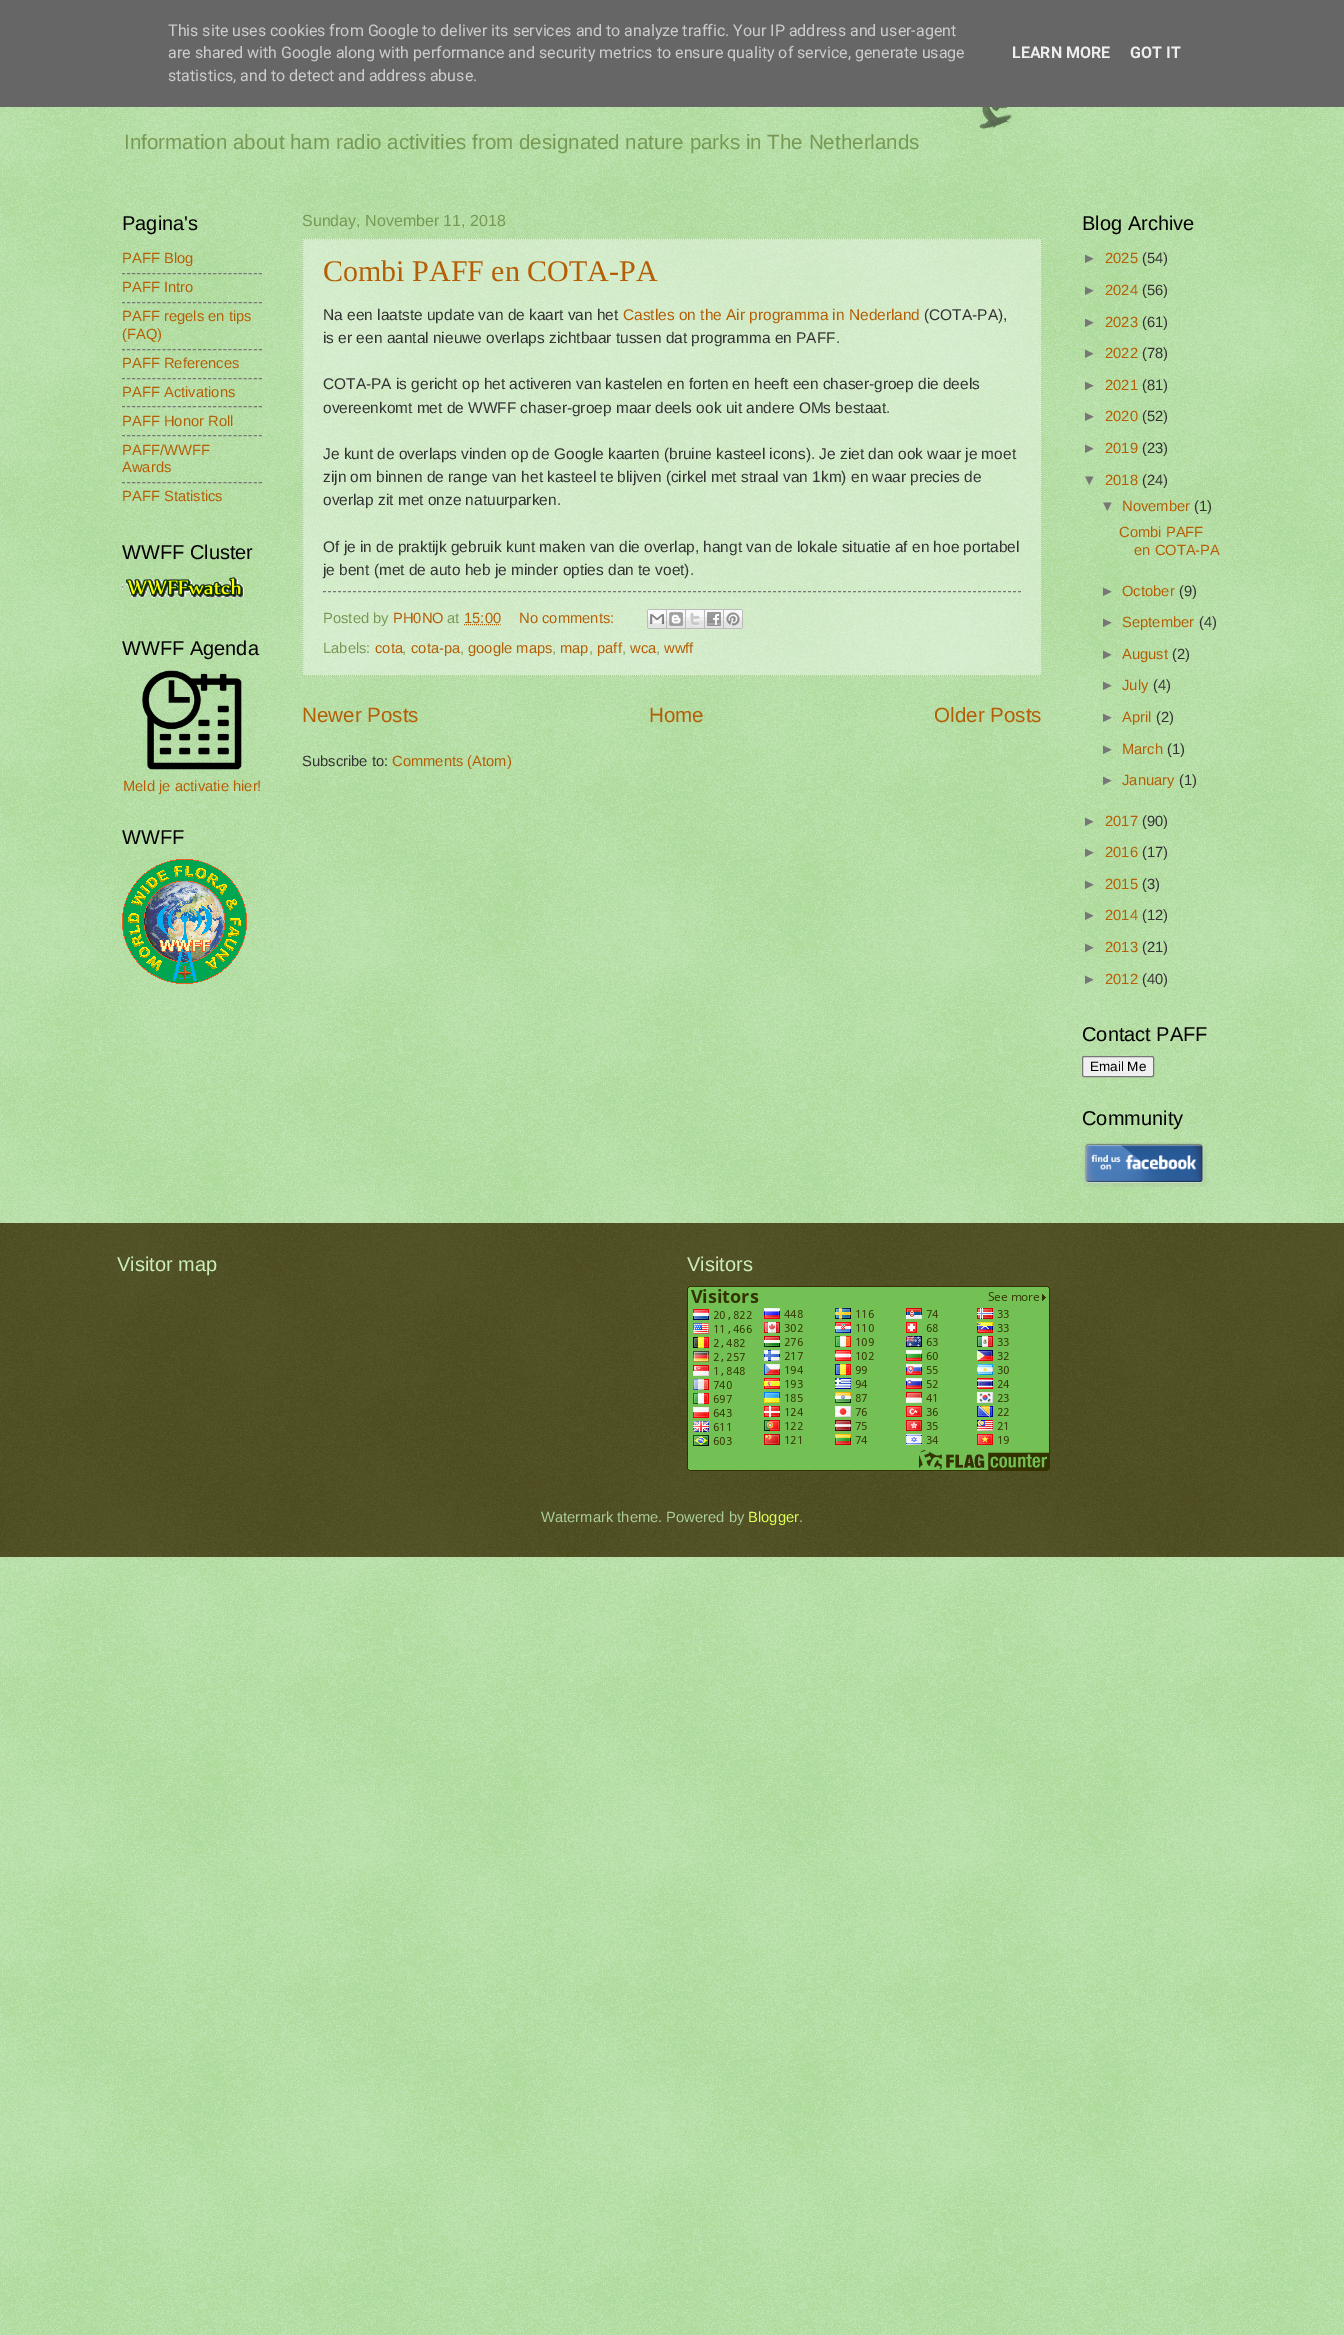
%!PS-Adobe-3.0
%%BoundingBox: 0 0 1344 2335
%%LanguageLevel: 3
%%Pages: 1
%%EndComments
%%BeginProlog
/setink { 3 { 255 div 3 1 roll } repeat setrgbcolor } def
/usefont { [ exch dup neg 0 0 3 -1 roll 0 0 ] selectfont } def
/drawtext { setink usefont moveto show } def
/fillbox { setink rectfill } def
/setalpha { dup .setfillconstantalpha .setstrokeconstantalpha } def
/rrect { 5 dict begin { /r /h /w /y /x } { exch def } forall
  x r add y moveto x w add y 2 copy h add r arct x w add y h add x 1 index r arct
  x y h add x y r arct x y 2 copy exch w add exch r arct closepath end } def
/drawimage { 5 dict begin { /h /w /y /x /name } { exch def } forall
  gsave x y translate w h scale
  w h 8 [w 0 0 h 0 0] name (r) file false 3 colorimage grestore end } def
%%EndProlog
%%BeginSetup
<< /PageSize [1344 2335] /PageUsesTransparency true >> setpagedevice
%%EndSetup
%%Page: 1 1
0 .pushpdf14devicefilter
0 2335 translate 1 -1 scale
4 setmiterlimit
0 0 1344 2335 115 192 84 fillbox
(assets/img1.rgb) 0 107 1344 2228 drawimage
0 0 1344 107 102 102 102 fillbox
(This site uses cookies from Google to deliver its services and to analyze traffic. Your IP address and user-agent) 168 36 /Roboto-Regular 16 204 204 204 drawtext
(are shared with Google along with performance and security metrics to ensure quality of service, generate usage) 168 58 /Roboto-Regular 16 204 204 204 drawtext
(statistics, and to detect and address abuse.) 168 81 /Roboto-Regular 16 204 204 204 drawtext
(LEARN MORE) 1012 58 /Roboto-Bold 16 238 238 238 drawtext
(GOT IT) 1130 58 /Roboto-Bold 16 238 238 238 drawtext
(assets/img2.rgb) 979 107 34 22 drawimage
(Information about ham radio activities from designated nature parks in The Netherlands) 124 149 /LiberationSans-Regular 20.6 119 153 85 drawtext
(Pagina's) 122 230 /LiberationSans-Regular 20 0 0 0 drawtext
(PAFF Blog) 122 263 /LiberationSans-Regular 14.75 180 95 6 drawtext
119 119 119 setink
[3 2.07] 0 setdash
122 273.5 moveto 262 273.5 lineto stroke
(PAFF Intro) 122 292 /LiberationSans-Regular 14.75 180 95 6 drawtext
119 119 119 setink
122 302.5 moveto 262 302.5 lineto stroke
(PAFF regels en tips) 122 321 /LiberationSans-Regular 14.75 180 95 6 drawtext
(\(FAQ\)) 122 339 /LiberationSans-Regular 14.75 180 95 6 drawtext
119 119 119 setink
122 349.5 moveto 262 349.5 lineto stroke
(PAFF References) 122 368 /LiberationSans-Regular 14.75 180 95 6 drawtext
119 119 119 setink
122 378.5 moveto 262 378.5 lineto stroke
(PAFF Activations) 122 397 /LiberationSans-Regular 14.75 180 95 6 drawtext
119 119 119 setink
122 406.5 moveto 262 406.5 lineto stroke
(PAFF Honor Roll) 122 426 /LiberationSans-Regular 14.75 180 95 6 drawtext
119 119 119 setink
122 435.5 moveto 262 435.5 lineto stroke
(PAFF/WWFF) 122 455 /LiberationSans-Regular 14.75 180 95 6 drawtext
(Awards) 122 472 /LiberationSans-Regular 14.75 180 95 6 drawtext
119 119 119 setink
122 482.5 moveto 262 482.5 lineto stroke
(PAFF Statistics) 122 501 /LiberationSans-Regular 14.75 180 95 6 drawtext
(WWFF Cluster) 122 559 /LiberationSans-Regular 20 0 0 0 drawtext
(assets/img3.rgb) 122 577 122 22 drawimage
(WWFF Agenda) 122 655 /LiberationSans-Regular 20 0 0 0 drawtext
(assets/img4.rgb) 142 670 100 100 drawimage
(Meld je activatie hier!) 123 791 /LiberationSans-Regular 14.75 180 95 6 drawtext
(WWFF) 122 844 /LiberationSans-Regular 20 0 0 0 drawtext
(assets/img5.rgb) 122 859 125 125 drawimage
(Sunday, November 11, 2018) 302 226 /LiberationSans-Regular 16 119 153 85 drawtext
0.4 setalpha
302 238 740 438 255 255 255 fillbox
1 setalpha
169 204 153 setink
[1 1] 0 setdash
302 238.5 moveto 1042 238.5 lineto stroke
1041.5 238 moveto 1041.5 676 lineto stroke
302 675.5 moveto 1042 675.5 lineto stroke
302.5 238 moveto 302.5 676 lineto stroke
(Combi PAFF en COTA-PA) 323 281 /LiberationSerif-Regular 30 180 95 6 drawtext
(Na een laatste update van de kaart van het) 323 320 /LiberationSans-Regular 15.45 51 51 51 drawtext
(Castles on the Air programma in Nederland) 623 320 /LiberationSans-Regular 15.45 180 95 6 drawtext
(\(COTA-PA\),) 924 320 /LiberationSans-Regular 15.45 51 51 51 drawtext
(is er een aantal nieuwe overlaps zichtbaar tussen dat programma en PAFF.) 323 343 /LiberationSans-Regular 15.45 51 51 51 drawtext
(COTA-PA is gericht op het activeren van kastelen en forten en heeft een chaser-groep die deels) 323 389 /LiberationSans-Regular 15.45 51 51 51 drawtext
(overeenkomt met de WWFF chaser-groep maar deels ook uit andere OMs bestaat.) 323 413 /LiberationSans-Regular 15.45 51 51 51 drawtext
(Je kunt de overlaps vinden op de Google kaarten \(bruine kasteel icons\). Je ziet dan ook waar je moet) 323 459 /LiberationSans-Regular 15.45 51 51 51 drawtext
(zijn om binnen de range van het kasteel te blijven \(cirkel met straal van 1km\) en waar precies de) 323 482 /LiberationSans-Regular 15.45 51 51 51 drawtext
(overlap zit met onze natuurparken.) 323 505 /LiberationSans-Regular 15.45 51 51 51 drawtext
(Of je in de praktijk gebruik kunt maken van die overlap, hangt van de lokale situatie af en hoe portabel) 323 552 /LiberationSans-Regular 15.45 51 51 51 drawtext
(je bent \(met de auto heb je minder opties dan te voet\).) 323 575 /LiberationSans-Regular 15.45 51 51 51 drawtext
119 119 119 setink
[3 2] 0 setdash
323 591.5 moveto 1021 591.5 lineto stroke
(Posted by) 323 623 /LiberationSans-Regular 14.75 119 153 85 drawtext
(PH0NO) 393 623 /LiberationSans-Regular 14.75 180 95 6 drawtext
(at) 447 623 /LiberationSans-Regular 14.75 119 153 85 drawtext
(15:00) 464 623 /LiberationSans-Regular 14.75 180 95 6 drawtext
[1 1] 0 setdash
464 624.5 moveto 500.5 624.5 lineto stroke
(No comments:) 519 623 /LiberationSans-Regular 14.75 180 95 6 drawtext
(assets/img6.rgb) 647 609 20 20 drawimage
(assets/img7.rgb) 667 609 19 20 drawimage
(assets/img8.rgb) 686 609 19 20 drawimage
(assets/img9.rgb) 705 609 19 20 drawimage
(assets/img10.rgb) 724 609 19 20 drawimage
(Labels:) 323 653 /LiberationSans-Regular 14.75 119 153 85 drawtext
(cota) 375 653 /LiberationSans-Regular 14.75 180 95 6 drawtext
(,) 402 653 /LiberationSans-Regular 14.75 119 153 85 drawtext
(cota-pa) 411 653 /LiberationSans-Regular 14.75 180 95 6 drawtext
(,) 460 653 /LiberationSans-Regular 14.75 119 153 85 drawtext
(google maps) 468 653 /LiberationSans-Regular 14.75 180 95 6 drawtext
(,) 552 653 /LiberationSans-Regular 14.75 119 153 85 drawtext
(map) 560 653 /LiberationSans-Regular 14.75 180 95 6 drawtext
(,) 589 653 /LiberationSans-Regular 14.75 119 153 85 drawtext
(paff) 597 653 /LiberationSans-Regular 14.75 180 95 6 drawtext
(,) 622 653 /LiberationSans-Regular 14.75 119 153 85 drawtext
(wca) 630 653 /LiberationSans-Regular 14.75 180 95 6 drawtext
(,) 656 653 /LiberationSans-Regular 14.75 119 153 85 drawtext
(wwff) 664 653 /LiberationSans-Regular 14.75 180 95 6 drawtext
(Newer Posts) 302 722 /LiberationSans-Regular 20.6 180 95 6 drawtext
(Home) 649 722 /LiberationSans-Regular 20.6 180 95 6 drawtext
(Older Posts) 934 722 /LiberationSans-Regular 20.6 180 95 6 drawtext
(Subscribe to:) 302 766 /LiberationSans-Regular 14.75 51 51 51 drawtext
(Comments \(Atom\)) 392 766 /LiberationSans-Regular 14.75 180 95 6 drawtext
(Blog Archive) 1082 230 /LiberationSans-Regular 20 0 0 0 drawtext
(►) 1082 263 /LiberationSans-Regular 14.75 119 119 119 drawtext
(2025) 1105 263 /LiberationSans-Regular 14.75 180 95 6 drawtext
(\(54\)) 1142 263 /LiberationSans-Regular 14.75 51 51 51 drawtext
(►) 1082 295 /LiberationSans-Regular 14.75 119 119 119 drawtext
(2024) 1105 295 /LiberationSans-Regular 14.75 180 95 6 drawtext
(\(56\)) 1142 295 /LiberationSans-Regular 14.75 51 51 51 drawtext
(►) 1082 327 /LiberationSans-Regular 14.75 119 119 119 drawtext
(2023) 1105 327 /LiberationSans-Regular 14.75 180 95 6 drawtext
(\(61\)) 1142 327 /LiberationSans-Regular 14.75 51 51 51 drawtext
(►) 1082 358 /LiberationSans-Regular 14.75 119 119 119 drawtext
(2022) 1105 358 /LiberationSans-Regular 14.75 180 95 6 drawtext
(\(78\)) 1142 358 /LiberationSans-Regular 14.75 51 51 51 drawtext
(►) 1082 390 /LiberationSans-Regular 14.75 119 119 119 drawtext
(2021) 1105 390 /LiberationSans-Regular 14.75 180 95 6 drawtext
(\(81\)) 1142 390 /LiberationSans-Regular 14.75 51 51 51 drawtext
(►) 1082 421 /LiberationSans-Regular 14.75 119 119 119 drawtext
(2020) 1105 421 /LiberationSans-Regular 14.75 180 95 6 drawtext
(\(52\)) 1142 421 /LiberationSans-Regular 14.75 51 51 51 drawtext
(►) 1082 453 /LiberationSans-Regular 14.75 119 119 119 drawtext
(2019) 1105 453 /LiberationSans-Regular 14.75 180 95 6 drawtext
(\(23\)) 1142 453 /LiberationSans-Regular 14.75 51 51 51 drawtext
(▼) 1082 485 /LiberationSans-Regular 14.75 119 119 119 drawtext
(2018) 1105 485 /LiberationSans-Regular 14.75 180 95 6 drawtext
(\(24\)) 1142 485 /LiberationSans-Regular 14.75 51 51 51 drawtext
(▼) 1100 511 /LiberationSans-Regular 14.75 119 119 119 drawtext
(November) 1122 511 /LiberationSans-Regular 14.75 180 95 6 drawtext
(\(1\)) 1194 511 /LiberationSans-Regular 14.75 51 51 51 drawtext
(Combi PAFF) 1119 537 /LiberationSans-Regular 14.75 180 95 6 drawtext
(en COTA-PA) 1134 555 /LiberationSans-Regular 14.75 180 95 6 drawtext
(►) 1100 596 /LiberationSans-Regular 14.75 119 119 119 drawtext
(October) 1122 596 /LiberationSans-Regular 14.75 180 95 6 drawtext
(\(9\)) 1179 596 /LiberationSans-Regular 14.75 51 51 51 drawtext
(►) 1100 627 /LiberationSans-Regular 14.75 119 119 119 drawtext
(September) 1122 627 /LiberationSans-Regular 14.75 180 95 6 drawtext
(\(4\)) 1199 627 /LiberationSans-Regular 14.75 51 51 51 drawtext
(►) 1100 659 /LiberationSans-Regular 14.75 119 119 119 drawtext
(August) 1122 659 /LiberationSans-Regular 14.75 180 95 6 drawtext
(\(2\)) 1172 659 /LiberationSans-Regular 14.75 51 51 51 drawtext
(►) 1100 690 /LiberationSans-Regular 14.75 119 119 119 drawtext
(July) 1122 690 /LiberationSans-Regular 14.75 180 95 6 drawtext
(\(4\)) 1153 690 /LiberationSans-Regular 14.75 51 51 51 drawtext
(►) 1100 722 /LiberationSans-Regular 14.75 119 119 119 drawtext
(April) 1122 722 /LiberationSans-Regular 14.75 180 95 6 drawtext
(\(2\)) 1156 722 /LiberationSans-Regular 14.75 51 51 51 drawtext
(►) 1100 754 /LiberationSans-Regular 14.75 119 119 119 drawtext
(March) 1122 754 /LiberationSans-Regular 14.75 180 95 6 drawtext
(\(1\)) 1167 754 /LiberationSans-Regular 14.75 51 51 51 drawtext
(►) 1100 785 /LiberationSans-Regular 14.75 119 119 119 drawtext
(January) 1122 785 /LiberationSans-Regular 14.75 180 95 6 drawtext
(\(1\)) 1179 785 /LiberationSans-Regular 14.75 51 51 51 drawtext
(►) 1082 826 /LiberationSans-Regular 14.75 119 119 119 drawtext
(2017) 1105 826 /LiberationSans-Regular 14.75 180 95 6 drawtext
(\(90\)) 1142 826 /LiberationSans-Regular 14.75 51 51 51 drawtext
(►) 1082 857 /LiberationSans-Regular 14.75 119 119 119 drawtext
(2016) 1105 857 /LiberationSans-Regular 14.75 180 95 6 drawtext
(\(17\)) 1142 857 /LiberationSans-Regular 14.75 51 51 51 drawtext
(►) 1082 889 /LiberationSans-Regular 14.75 119 119 119 drawtext
(2015) 1105 889 /LiberationSans-Regular 14.75 180 95 6 drawtext
(\(3\)) 1142 889 /LiberationSans-Regular 14.75 51 51 51 drawtext
(►) 1082 920 /LiberationSans-Regular 14.75 119 119 119 drawtext
(2014) 1105 920 /LiberationSans-Regular 14.75 180 95 6 drawtext
(\(12\)) 1142 920 /LiberationSans-Regular 14.75 51 51 51 drawtext
(►) 1082 952 /LiberationSans-Regular 14.75 119 119 119 drawtext
(2013) 1105 952 /LiberationSans-Regular 14.75 180 95 6 drawtext
(\(21\)) 1142 952 /LiberationSans-Regular 14.75 51 51 51 drawtext
(►) 1082 984 /LiberationSans-Regular 14.75 119 119 119 drawtext
(2012) 1105 984 /LiberationSans-Regular 14.75 180 95 6 drawtext
(\(40\)) 1142 984 /LiberationSans-Regular 14.75 51 51 51 drawtext
(Contact PAFF) 1082 1041 /LiberationSans-Regular 20 0 0 0 drawtext
239 239 239 setink
1082.5 1056.5 71 20 1.5 rrect gsave fill grestore
118 118 118 setink
[] 0 setdash
stroke
(Email Me) 1090 1071 /LiberationSans-Regular 13.5 0 0 0 drawtext
(Community) 1082 1125 /LiberationSans-Regular 20 0 0 0 drawtext
(assets/img11.rgb) 1082 1142 125 45 drawimage
0 1223 1344 334 51 51 0 fillbox
(assets/img12.rgb) 0 1223 1344 334 drawimage
(Visitor map) 117 1271 /LiberationSans-Regular 20 204 238 187 drawtext
(Visitors) 687 1271 /LiberationSans-Regular 20 204 238 187 drawtext
(assets/img13.rgb) 687 1286 363 185 drawimage
(Watermark theme. Powered by) 541 1522 /LiberationSans-Regular 14.75 169 204 153 drawtext
(Blogger) 748 1522 /LiberationSans-Regular 14.75 221 255 85 drawtext
(.) 799 1522 /LiberationSans-Regular 14.75 169 204 153 drawtext
.poppdf14devicefilter showpage
%%EOF
